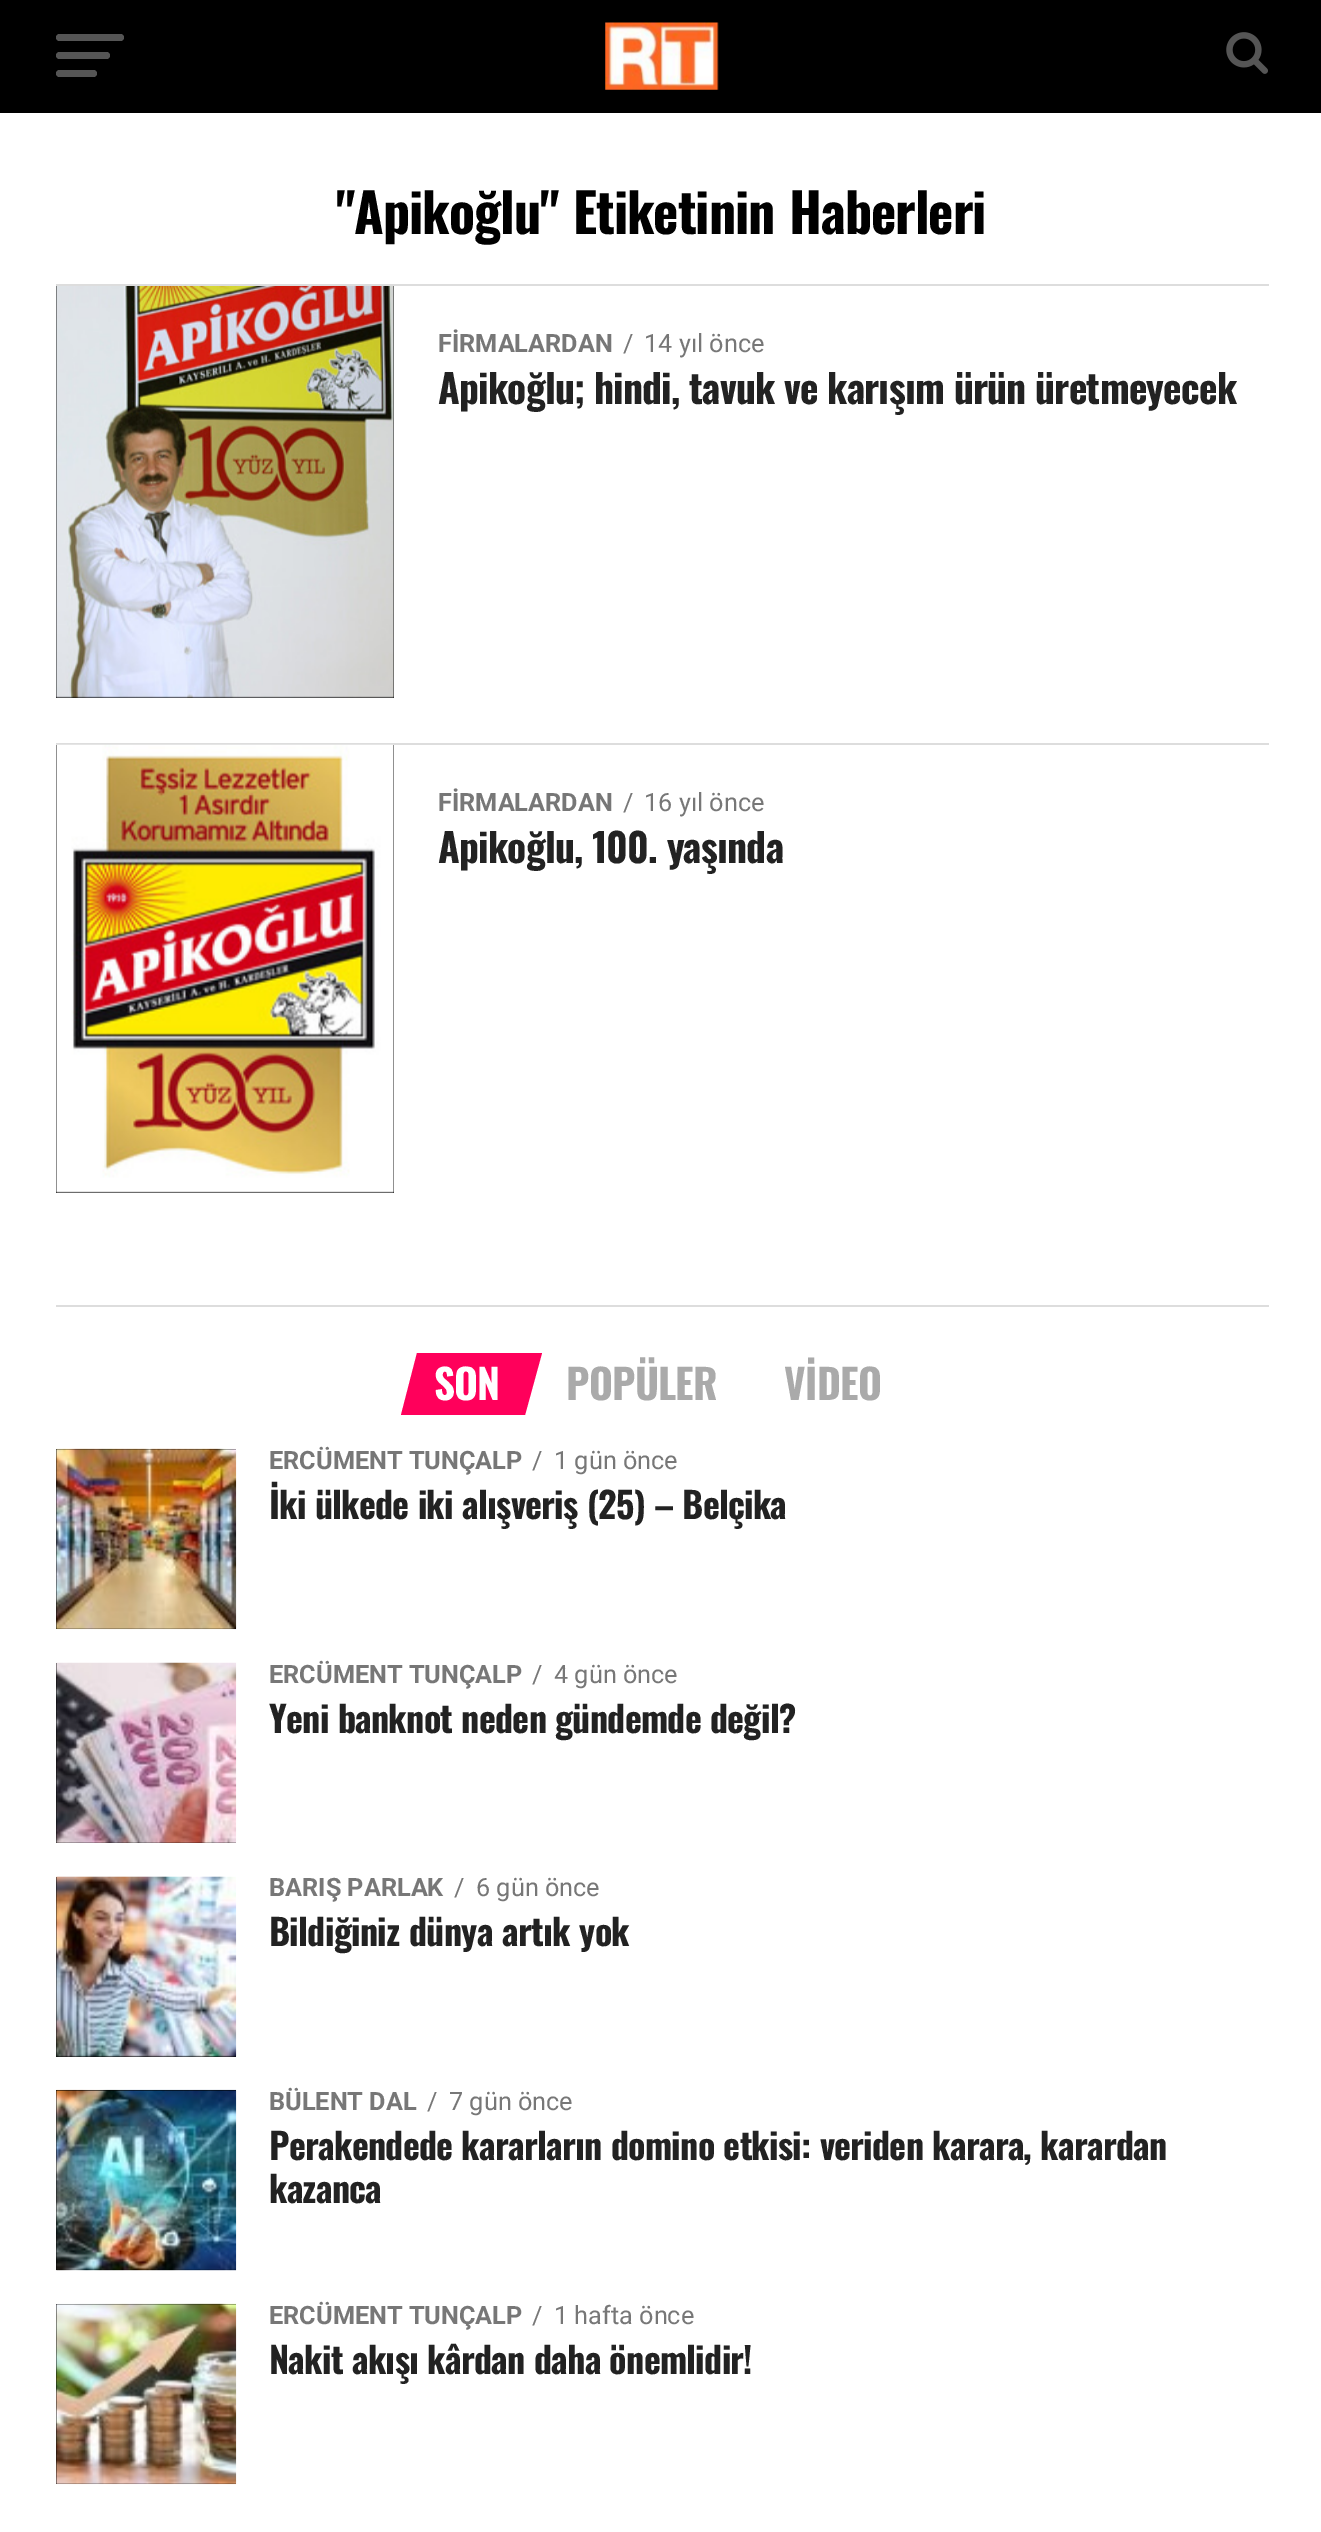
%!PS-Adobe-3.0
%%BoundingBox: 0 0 1321 2532
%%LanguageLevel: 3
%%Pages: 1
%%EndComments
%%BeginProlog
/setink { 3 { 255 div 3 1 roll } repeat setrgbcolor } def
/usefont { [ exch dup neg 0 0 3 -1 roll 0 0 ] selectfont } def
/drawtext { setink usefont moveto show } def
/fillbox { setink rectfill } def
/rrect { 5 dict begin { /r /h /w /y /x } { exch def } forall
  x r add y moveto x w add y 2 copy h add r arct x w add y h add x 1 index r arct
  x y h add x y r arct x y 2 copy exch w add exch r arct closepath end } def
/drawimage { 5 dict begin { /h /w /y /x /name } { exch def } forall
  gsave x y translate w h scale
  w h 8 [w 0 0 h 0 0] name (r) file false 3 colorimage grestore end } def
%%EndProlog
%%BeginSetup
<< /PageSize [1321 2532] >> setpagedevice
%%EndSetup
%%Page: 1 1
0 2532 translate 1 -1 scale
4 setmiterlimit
0 0 1321 2532 255 255 255 fillbox
0 0 1321 113 0 0 0 fillbox
85 85 85 setink
56 34 68 7 3.5 rrect fill
56 52 54 7 3.5 rrect fill
56 70 41 7 3.5 rrect fill
(assets/img1.rgb) 605 22 114 68 drawimage
(assets/img2.rgb) 1226 32 42 42 drawimage
/Oswald-Bold 54 usefont
0 0 0 setink
336 234 moveto 2 0 32 -1.1 0 ("Apikoğlu" Etiketinin Haberleri) awidthshow
56 284 1213 2 221 221 221 fillbox
56 286 338 412 0 0 0 fillbox
(assets/img3.rgb) 56 286 338 412 drawimage
(FİRMALARDAN) 438 352 /Roboto-Bold 25.25 119 119 119 drawtext
(/) 623 352 /Roboto-Regular 25.25 119 119 119 drawtext
(14 yıl önce) 644 352 /Roboto-Regular 25.25 119 119 119 drawtext
/Oswald-Bold 39.6 usefont
34 34 34 setink
438 404 moveto 0.25 0 32 -0.8 0 (Apikoğlu; hindi, tavuk ve karışım ürün üretmeyecek) awidthshow
56 743 1213 2 221 221 221 fillbox
56 745 338 448 0 0 0 fillbox
(assets/img4.rgb) 56 744 338 449 drawimage
(FİRMALARDAN) 438 811 /Roboto-Bold 25.25 119 119 119 drawtext
(/) 623 811 /Roboto-Regular 25.25 119 119 119 drawtext
(16 yıl önce) 644 811 /Roboto-Regular 25.25 119 119 119 drawtext
/Oswald-Bold 39.6 usefont
34 34 34 setink
438 863 moveto -0.8 0 (Apikoğlu, 100. yaşında) ashow
56 1305 1213 2 221 221 221 fillbox
255 0 91 setink
417 1353 moveto 542 1353 lineto 525 1415 lineto 401 1415 lineto closepath fill
/Oswald-Bold 41 usefont
255 255 255 setink
434 1400 moveto -1 0 (SON) ashow
170 170 170 setink
566 1400 moveto -0.75 0 (POPÜLER) ashow
784 1400 moveto -0.5 0 (VİDEO) ashow
56 1449 180 180 0 0 0 fillbox
(assets/img5.rgb) 56 1448 181 182 drawimage
(ERCÜMENT TUNÇALP) 269 1469 /Roboto-Bold 25.25 119 119 119 drawtext
(/) 532 1469 /Roboto-Regular 25.25 119 119 119 drawtext
(1 gün önce) 554 1469 /Roboto-Regular 25.25 119 119 119 drawtext
/Oswald-Bold 36 usefont
34 34 34 setink
269 1519 moveto 0.5 0 32 -0.72 0 (İki ülkede iki alışveriş \(25\) – Belçika) awidthshow
56 1663 180 180 0 0 0 fillbox
(assets/img6.rgb) 56 1662 181 181 drawimage
(ERCÜMENT TUNÇALP) 269 1683 /Roboto-Bold 25.25 119 119 119 drawtext
(/) 532 1683 /Roboto-Regular 25.25 119 119 119 drawtext
(4 gün önce) 554 1683 /Roboto-Regular 25.25 119 119 119 drawtext
/Oswald-Bold 36 usefont
34 34 34 setink
269 1733 moveto 0.5 0 32 -0.72 0 (Yeni banknot neden gündemde değil?) awidthshow
56 1877 180 180 0 0 0 fillbox
(assets/img7.rgb) 56 1876 181 181 drawimage
(BARIŞ PARLAK) 269 1896 /Roboto-Bold 25.25 119 119 119 drawtext
(/) 454 1896 /Roboto-Regular 25.25 119 119 119 drawtext
(6 gün önce) 476 1896 /Roboto-Regular 25.25 119 119 119 drawtext
/Oswald-Bold 36 usefont
34 34 34 setink
269 1946 moveto 1 0 32 -0.72 0 (Bildiğiniz dünya artık yok) awidthshow
56 2090 180 180 0 0 0 fillbox
(assets/img8.rgb) 56 2089 181 182 drawimage
(BÜLENT DAL) 269 2110 /Roboto-Bold 25.25 119 119 119 drawtext
(/) 427 2110 /Roboto-Regular 25.25 119 119 119 drawtext
(7 gün önce) 449 2110 /Roboto-Regular 25.25 119 119 119 drawtext
/Oswald-Bold 36 usefont
34 34 34 setink
269 2160 moveto 0.5 0 32 -0.72 0 (Perakendede kararların domino etkisi: veriden karara, karardan) awidthshow
269 2203 moveto -0.72 0 (kazanca) ashow
56 2304 180 180 0 0 0 fillbox
(assets/img9.rgb) 56 2303 181 182 drawimage
(ERCÜMENT TUNÇALP) 269 2324 /Roboto-Bold 25.25 119 119 119 drawtext
(/) 532 2324 /Roboto-Regular 25.25 119 119 119 drawtext
(1 hafta önce) 554 2324 /Roboto-Regular 25.25 119 119 119 drawtext
/Oswald-Bold 36 usefont
34 34 34 setink
269 2374 moveto 0.5 0 32 -0.72 0 (Nakit akışı kârdan daha önemlidir!) awidthshow
showpage
%%EOF
